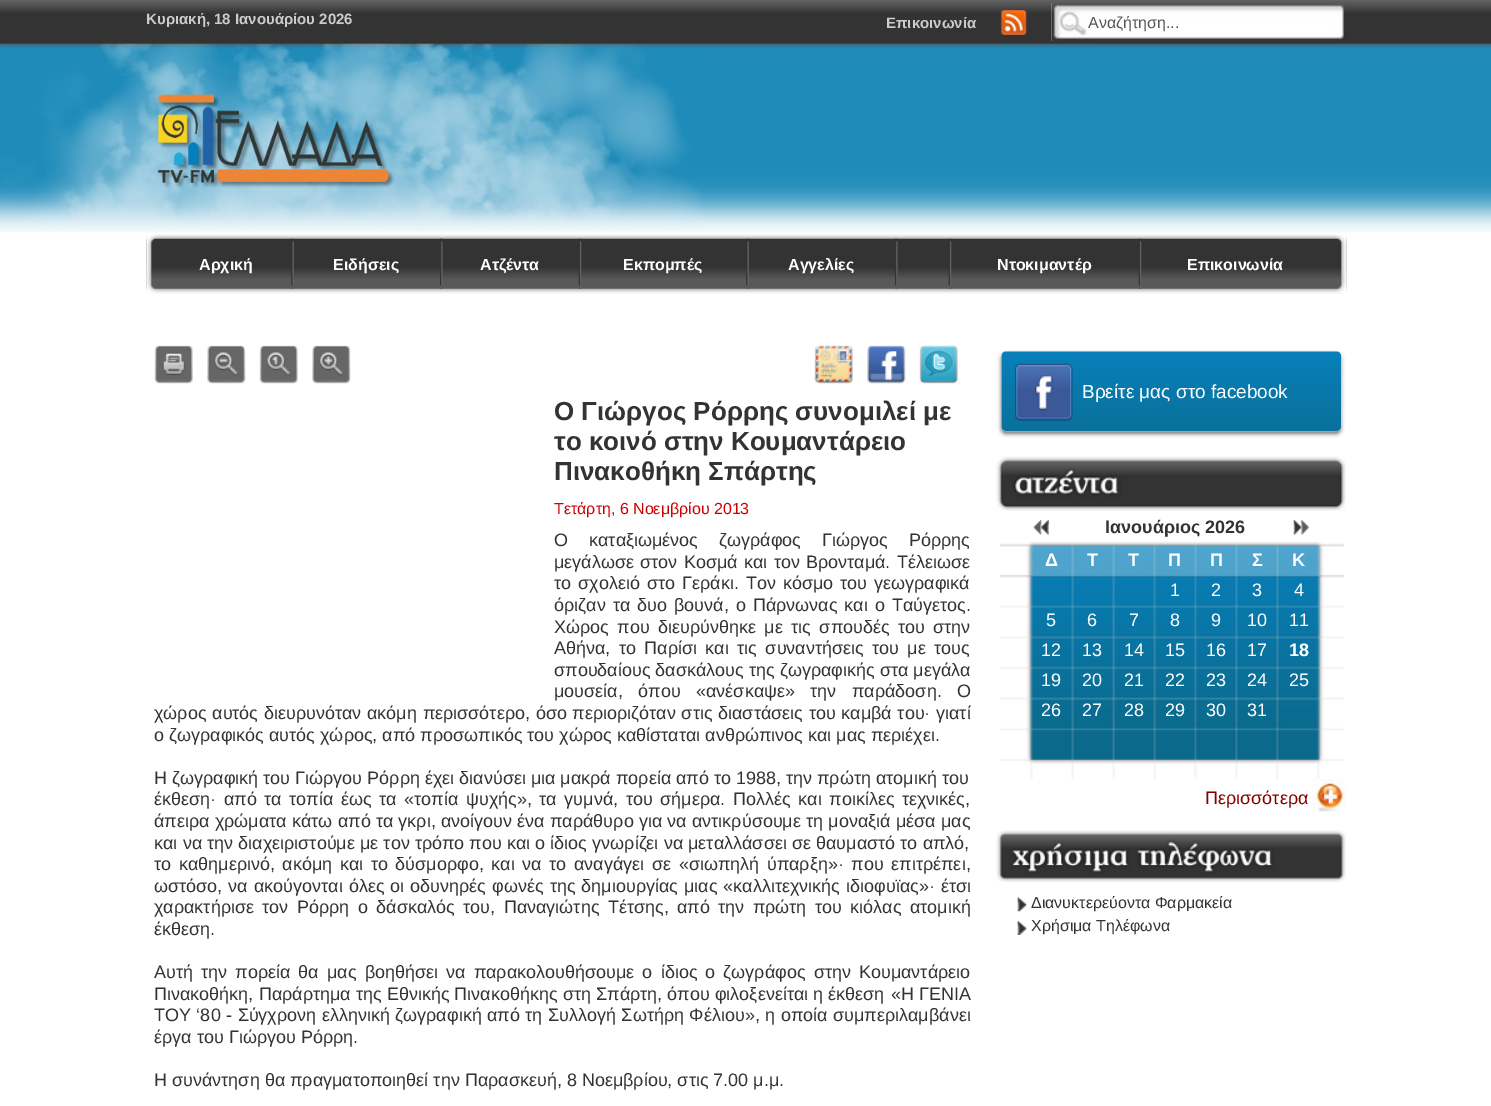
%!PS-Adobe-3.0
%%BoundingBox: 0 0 1491 1106
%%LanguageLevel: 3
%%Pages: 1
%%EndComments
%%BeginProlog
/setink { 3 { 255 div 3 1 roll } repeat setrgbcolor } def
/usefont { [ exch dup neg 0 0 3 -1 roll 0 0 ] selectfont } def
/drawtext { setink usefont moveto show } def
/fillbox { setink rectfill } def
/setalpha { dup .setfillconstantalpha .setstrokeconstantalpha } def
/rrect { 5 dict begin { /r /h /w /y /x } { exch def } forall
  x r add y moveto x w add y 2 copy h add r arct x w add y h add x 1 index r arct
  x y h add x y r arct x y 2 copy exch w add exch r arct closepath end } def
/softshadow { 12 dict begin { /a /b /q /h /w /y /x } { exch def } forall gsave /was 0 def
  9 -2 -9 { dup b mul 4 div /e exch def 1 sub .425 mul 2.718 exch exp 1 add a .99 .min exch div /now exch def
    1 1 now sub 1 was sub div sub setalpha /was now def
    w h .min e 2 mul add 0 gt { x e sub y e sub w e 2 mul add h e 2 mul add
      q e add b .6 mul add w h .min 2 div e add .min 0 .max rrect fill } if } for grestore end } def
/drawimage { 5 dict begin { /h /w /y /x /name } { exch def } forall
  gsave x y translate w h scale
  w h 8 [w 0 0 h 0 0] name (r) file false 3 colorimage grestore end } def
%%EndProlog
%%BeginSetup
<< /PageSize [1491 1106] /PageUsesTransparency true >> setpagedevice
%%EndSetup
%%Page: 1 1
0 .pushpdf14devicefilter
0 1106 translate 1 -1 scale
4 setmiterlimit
0 0 1491 1106 255 255 255 fillbox
(assets/img1.rgb) 0 43 1491 190 drawimage
85 85 85 setink
0 1 1491 44 0 2 1 softshadow
(assets/img2.rgb) 0 0 1491 44 drawimage
(Κυριακή, 18 Ιανουάρίου 2026) 146 24 /LiberationSans-Bold 15 204 204 204 drawtext
(Επικοινωνία) 886 28 /LiberationSans-Bold 15 204 204 204 drawtext
(assets/img3.rgb) 1001 10 26 25 drawimage
(assets/img4.rgb) 1051 3 295 38 drawimage
(Αναζήτηση...) 1088 28 /LiberationSans-Regular 16 85 85 85 drawtext
(assets/img5.rgb) 0 43 703 188 drawimage
(assets/img6.rgb) 157 94 238 94 drawimage
(assets/img7.rgb) 146 234 1201 60 drawimage
(assets/img8.rgb) 146 234 11 60 drawimage
(Αρχική) 199 270 /LiberationSans-Bold 16 255 255 255 drawtext
(assets/img9.rgb) 291 238 3 51 drawimage
(Ειδήσεις) 333 270 /LiberationSans-Bold 16 255 255 255 drawtext
(assets/img10.rgb) 440 238 3 51 drawimage
(Ατζέντα) 480 270 /LiberationSans-Bold 16 255 255 255 drawtext
(assets/img11.rgb) 578 238 4 51 drawimage
(Εκπομπές) 623 270 /LiberationSans-Bold 16 255 255 255 drawtext
(assets/img9.rgb) 746 238 3 51 drawimage
(Αγγελίες) 788 270 /LiberationSans-Bold 16 255 255 255 drawtext
(assets/img10.rgb) 895 238 3 51 drawimage
(assets/img11.rgb) 948 238 4 51 drawimage
(Ντοκιμαντέρ) 997 270 /LiberationSans-Bold 16 255 255 255 drawtext
(assets/img11.rgb) 1138 238 4 51 drawimage
(Επικοινωνία) 1187 270 /LiberationSans-Bold 16 255 255 255 drawtext
(assets/img12.rgb) 1336 234 11 60 drawimage
(assets/img13.rgb) 154 345 39 39 drawimage
(assets/img14.rgb) 207 345 39 39 drawimage
(assets/img15.rgb) 259 345 39 39 drawimage
(assets/img16.rgb) 312 345 39 39 drawimage
(assets/img17.rgb) 814 345 39 39 drawimage
(assets/img18.rgb) 867 345 39 39 drawimage
(assets/img19.rgb) 919 345 39 39 drawimage
(Ο Γιώργος Ρόρρης συνομιλεί με) 554 420 /LiberationSans-Bold 26 51 51 51 drawtext
(το κοινό στην Κουμαντάρειο) 554 450 /LiberationSans-Bold 26 51 51 51 drawtext
(Πινακοθήκη Σπάρτης) 554 480 /LiberationSans-Bold 26 51 51 51 drawtext
(Τετάρτη, 6 Νοεμβρίου 2013) 554 514 /LiberationSans-Regular 16 204 0 0 drawtext
/LiberationSans-Regular 18 usefont
51 51 51 setink
554 546 moveto 16 0 32 (Ο καταξιωμένος ζωγράφος Γιώργος Ρόρρης) widthshow
554 568 moveto 1.25 0 32 (μεγάλωσε στον Κοσμά και τον Βρονταμά. Τέλειωσε) widthshow
554 589 moveto 2 0 32 (το σχολειό στο Γεράκι. Τον κόσμο του γεωγραφικά) widthshow
554 611 moveto 2 0 32 (όριζαν τα δυο βουνά, ο Πάρνωνας και ο Ταύγετος.) widthshow
554 633 moveto 3.4 0 32 (Χώρος που διευρύνθηκε με τις σπουδές του στην) widthshow
554 654 moveto 3.4 0 32 (Αθήνα, το Παρίσι και τις συναντήσεις του με τους) widthshow
(σπουδαίους δασκάλους της ζωγραφικής στα μεγάλα) 554 676 /LiberationSans-Regular 18 51 51 51 drawtext
554 697 moveto 10.5 0 32 (μουσεία, όπου «ανέσκαψε» την παράδοση. Ο) widthshow
154 719 moveto 0.7 0 32 (χώρος αυτός διευρυνόταν ακόμη περισσότερο, όσο περιοριζόταν στις διαστάσεις του καμβά του· γιατί) widthshow
(ο ζωγραφικός αυτός χώρος, από προσωπικός του χώρος καθίσταται ανθρώπινος και μας περιέχει.) 154 741 /LiberationSans-Regular 18 51 51 51 drawtext
(Η ζωγραφική του Γιώργου Ρόρρη έχει διανύσει μια μακρά πορεία από το 1988, την πρώτη ατομική του) 154 784 /LiberationSans-Regular 18 51 51 51 drawtext
154 805 moveto 2.6 0 32 (έκθεση· από τα τοπία έως τα «τοπία ψυχής», τα γυμνά, του σήμερα. Πολλές και ποικίλες τεχνικές,) widthshow
154 827 moveto 0.2 0 32 (άπειρα χρώματα κάτω από τα γκρι, ανοίγουν ένα παράθυρο για να αντικρύσουμε τη μοναξιά μέσα μας) widthshow
154 849 moveto 0.1 0 32 (και να την διαχειριστούμε με τον τρόπο που και ο ίδιος γνωρίζει να μεταλλάσσει σε θαυμαστό το απλό,) widthshow
154 870 moveto 2.6 0 32 (το καθημερινό, ακόμη και το δύσμορφο, και να το αναγάγει σε «σιωπηλή ύπαρξη»· που επιτρέπει,) widthshow
154 892 moveto 1 0 32 (ωστόσο, να ακούγονται όλες οι οδυνηρές φωνές της δημιουργίας μιας «καλλιτεχνικής ιδιοφυϊας»· έτσι) widthshow
154 913 moveto 3.4 0 32 (χαρακτήρισε τον Ρόρρη ο δάσκαλός του, Παναγιώτης Τέτσης, από την πρώτη του κιόλας ατομική) widthshow
(έκθεση.) 154 935 /LiberationSans-Regular 18 51 51 51 drawtext
154 978 moveto 3.1 0 32 (Αυτή την πορεία θα μας βοηθήσει να παρακολουθήσουμε ο ίδιος ο ζωγράφος στην Κουμαντάρειο) widthshow
154 1000 moveto 0.1 0 32 (Πινακοθήκη, Παράρτημα της Εθνικής Πινακοθήκης στη Σπάρτη, όπου φιλοξενείται η έκθεση) widthshow
(«Η ΓΕΝΙΑ) 891 1000 /LiberationSans-Regular 18 51 51 51 drawtext
154 1021 moveto 0.5 0 32 (ΤΟΥ ‘80 - Σύγχρονη ελληνική ζωγραφική από τη Συλλογή Σωτήρη Φέλιου», η οποία συμπεριλαμβάνει) widthshow
(έργα του Γιώργου Ρόρρη.) 154 1043 /LiberationSans-Regular 18 51 51 51 drawtext
(Η συνάντηση θα πραγματοποιηθεί την Παρασκευή, 8 Νοεμβρίου, στις 7.00 μ.μ.) 154 1086 /LiberationSans-Regular 18 51 51 51 drawtext
119 119 119 setink
1001 354 340 80 5 2 1 softshadow
(assets/img20.rgb) 1001 351 341 81 drawimage
(assets/img21.rgb) 1015 363 58 59 drawimage
(Βρείτε μας στο facebook) 1082 398 /LiberationSans-Regular 19 255 255 255 drawtext
(assets/img22.rgb) 996 456 350 55 drawimage
(assets/img23.rgb) 1000 541 344 238 drawimage
(assets/img24.rgb) 1033 520 17 15 drawimage
(Ιανουάριος 2026) 1105 533 /LiberationSans-Bold 18 51 51 51 drawtext
(Δ) 1045 566 /LiberationSans-Bold 18 255 255 255 drawtext
(Τ) 1087 566 /LiberationSans-Bold 18 255 255 255 drawtext
(Τ) 1128 566 /LiberationSans-Bold 18 255 255 255 drawtext
(Π) 1168 566 /LiberationSans-Bold 18 255 255 255 drawtext
(Π) 1210 566 /LiberationSans-Bold 18 255 255 255 drawtext
(Σ) 1252 566 /LiberationSans-Bold 18 255 255 255 drawtext
(Κ) 1292 566 /LiberationSans-Bold 18 255 255 255 drawtext
(1) 1170 596 /LiberationSans-Regular 18 255 255 255 drawtext
(2) 1211 596 /LiberationSans-Regular 18 255 255 255 drawtext
(3) 1252 596 /LiberationSans-Regular 18 255 255 255 drawtext
(4) 1294 596 /LiberationSans-Regular 18 255 255 255 drawtext
(5) 1046 626 /LiberationSans-Regular 18 255 255 255 drawtext
(6) 1087 626 /LiberationSans-Regular 18 255 255 255 drawtext
(7) 1129 626 /LiberationSans-Regular 18 255 255 255 drawtext
(8) 1170 626 /LiberationSans-Regular 18 255 255 255 drawtext
(9) 1211 626 /LiberationSans-Regular 18 255 255 255 drawtext
(10) 1247 626 /LiberationSans-Regular 18 255 255 255 drawtext
(11) 1289 626 /LiberationSans-Regular 18 255 255 255 drawtext
(12) 1041 656 /LiberationSans-Regular 18 255 255 255 drawtext
(13) 1082 656 /LiberationSans-Regular 18 255 255 255 drawtext
(14) 1124 656 /LiberationSans-Regular 18 255 255 255 drawtext
(15) 1165 656 /LiberationSans-Regular 18 255 255 255 drawtext
(16) 1206 656 /LiberationSans-Regular 18 255 255 255 drawtext
(17) 1247 656 /LiberationSans-Regular 18 255 255 255 drawtext
(18) 1289 656 /LiberationSans-Bold 18 255 255 255 drawtext
(19) 1041 686 /LiberationSans-Regular 18 255 255 255 drawtext
(20) 1082 686 /LiberationSans-Regular 18 255 255 255 drawtext
(21) 1124 686 /LiberationSans-Regular 18 255 255 255 drawtext
(22) 1165 686 /LiberationSans-Regular 18 255 255 255 drawtext
(23) 1206 686 /LiberationSans-Regular 18 255 255 255 drawtext
(24) 1247 686 /LiberationSans-Regular 18 255 255 255 drawtext
(25) 1289 686 /LiberationSans-Regular 18 255 255 255 drawtext
(26) 1041 716 /LiberationSans-Regular 18 255 255 255 drawtext
(27) 1082 716 /LiberationSans-Regular 18 255 255 255 drawtext
(28) 1124 716 /LiberationSans-Regular 18 255 255 255 drawtext
(29) 1165 716 /LiberationSans-Regular 18 255 255 255 drawtext
(30) 1206 716 /LiberationSans-Regular 18 255 255 255 drawtext
(31) 1247 716 /LiberationSans-Regular 18 255 255 255 drawtext
(assets/img25.rgb) 1292 520 17 15 drawimage
(assets/img26.rgb) 1312 779 34 33 drawimage
(Περισσότερα) 1205 804 /LiberationSans-Regular 18 132 0 0 drawtext
(assets/img27.rgb) 996 830 350 53 drawimage
(assets/img28.rgb) 1016 897 11 15 drawimage
(Διανυκτερεύοντα Φαρμακεία) 1031 908 /LiberationSans-Regular 16 51 51 51 drawtext
(assets/img29.rgb) 1016 921 11 14 drawimage
(Χρήσιμα Τηλέφωνα) 1031 931 /LiberationSans-Regular 16 51 51 51 drawtext
.poppdf14devicefilter showpage
%%EOF
